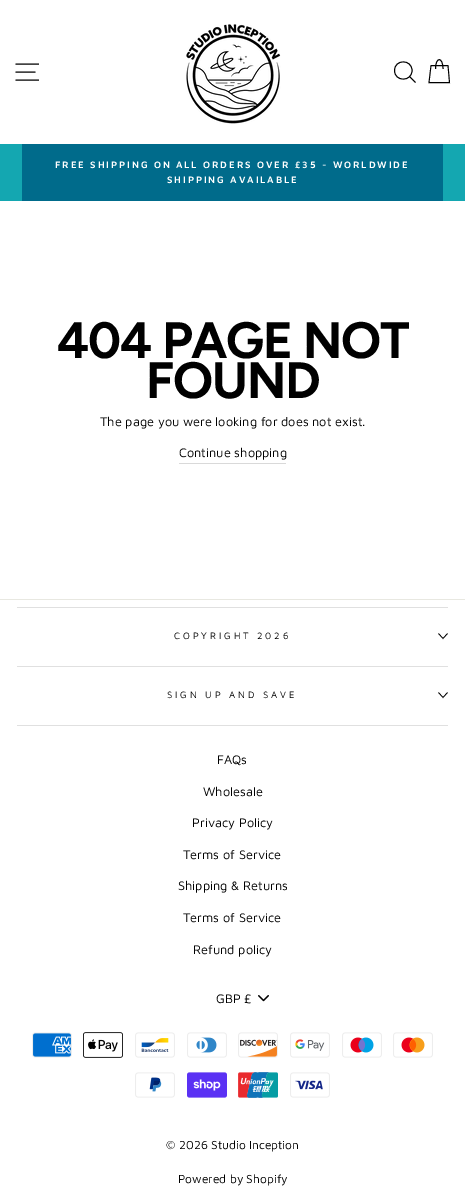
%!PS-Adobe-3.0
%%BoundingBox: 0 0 465 1197
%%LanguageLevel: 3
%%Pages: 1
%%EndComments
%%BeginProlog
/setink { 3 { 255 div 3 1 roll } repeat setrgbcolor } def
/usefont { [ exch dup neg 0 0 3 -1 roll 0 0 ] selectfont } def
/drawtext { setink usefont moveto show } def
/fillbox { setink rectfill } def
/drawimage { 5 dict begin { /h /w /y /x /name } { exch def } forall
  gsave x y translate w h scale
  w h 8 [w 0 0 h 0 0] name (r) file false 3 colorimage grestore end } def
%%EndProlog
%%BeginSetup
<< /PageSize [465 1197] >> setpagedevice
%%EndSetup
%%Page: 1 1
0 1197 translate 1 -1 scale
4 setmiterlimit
0 0 465 1197 255 255 255 fillbox
0 0 0 setink
0.9 setlinewidth
15.5 64 moveto 39 64 lineto 15.5 72 moveto 35.5 72 lineto 15.5 80 moveto 39 80 lineto stroke
(assets/img1.rgb) 186 24 95 100 drawimage
412 70.5 moveto 412 82 394.5 82 394.5 70.5 curveto 394.5 59 412 59 412 70.5 curveto closepath 415.5 82.5 moveto 409.5 76.5 lineto 435.5 69 moveto 435.5 56.5 443 56.5 443 69 curveto 431 65.5 moveto 448 65.5 lineto 449.5 82.5 lineto 429 82.5 lineto closepath stroke
0 144 465 57 20 167 177 fillbox
22 144 421 57 0 107 139 fillbox
/MavenPro-SemiBold 9.55 usefont
255 255 255 setink
55 168 moveto 1.9 0 (FREE SHIPPING ON ALL ORDERS OVER £35 - WORLDWIDE) ashow
167 183 moveto 1.9 0 (SHIPPING AVAILABLE) ashow
/Figtree-Bold 51 usefont
0 0 0 setink
57 358 moveto -1.25 0 (404 PAGE NOT) ashow
146 398 moveto -1.25 0 (FOUND) ashow
(The page you were looking for does not exist.) 100 426 /MavenPro-Regular 12.75 0 0 0 drawtext
179 463 107 1 217 217 217 fillbox
(Continue shopping) 179 457 /MavenPro-Regular 12.75 0 0 0 drawtext
0 599 465 1 232 232 225 fillbox
17 607 431 1 224 224 224 fillbox
/MavenPro-Regular 9.55 usefont
0 0 0 setink
174 639 moveto 2.9 0 (COPYRIGHT 2026) ashow
0.7 setlinewidth
438.5 633.5 moveto 443 638.5 lineto 447.5 633.5 lineto stroke
17 666 431 1 224 224 224 fillbox
0 0 0 setink
167 698 moveto 2.9 0 (SIGN UP AND SAVE) ashow
438.5 692.5 moveto 443 697.5 lineto 447.5 692.5 lineto stroke
17 725 431 1 224 224 224 fillbox
(FAQs) 217 764 /MavenPro-Regular 12.75 0 0 0 drawtext
(Wholesale) 203 796 /MavenPro-Regular 12.75 0 0 0 drawtext
(Privacy Policy) 192 827 /MavenPro-Regular 12.75 0 0 0 drawtext
(Terms of Service) 183 859 /MavenPro-Regular 12.75 0 0 0 drawtext
(Shipping & Returns) 178 890 /MavenPro-Regular 12.75 0 0 0 drawtext
(Terms of Service) 183 922 /MavenPro-Regular 12.75 0 0 0 drawtext
(Refund policy) 193 954 /MavenPro-Regular 12.75 0 0 0 drawtext
(assets/img2.rgb) 258 995 11 7 drawimage
(GBP £) 216 1003 /MavenPro-Regular 12.75 0 0 0 drawtext
(assets/img3.rgb) 32 1032 40 26 drawimage
(assets/img4.rgb) 83 1032 40 26 drawimage
(assets/img5.rgb) 135 1032 40 26 drawimage
(assets/img6.rgb) 187 1032 40 26 drawimage
(assets/img7.rgb) 238 1032 40 26 drawimage
(assets/img8.rgb) 290 1032 40 26 drawimage
(assets/img9.rgb) 342 1032 40 26 drawimage
(assets/img10.rgb) 393 1032 40 26 drawimage
(assets/img11.rgb) 135 1072 40 26 drawimage
(assets/img12.rgb) 187 1072 40 26 drawimage
(assets/img13.rgb) 238 1072 40 26 drawimage
(assets/img14.rgb) 290 1072 40 26 drawimage
(© 2026 Studio Inception) 166 1149 /MavenPro-Regular 12 0 0 0 drawtext
(Powered by Shopify) 178 1183 /MavenPro-Regular 12 0 0 0 drawtext
showpage
%%EOF
